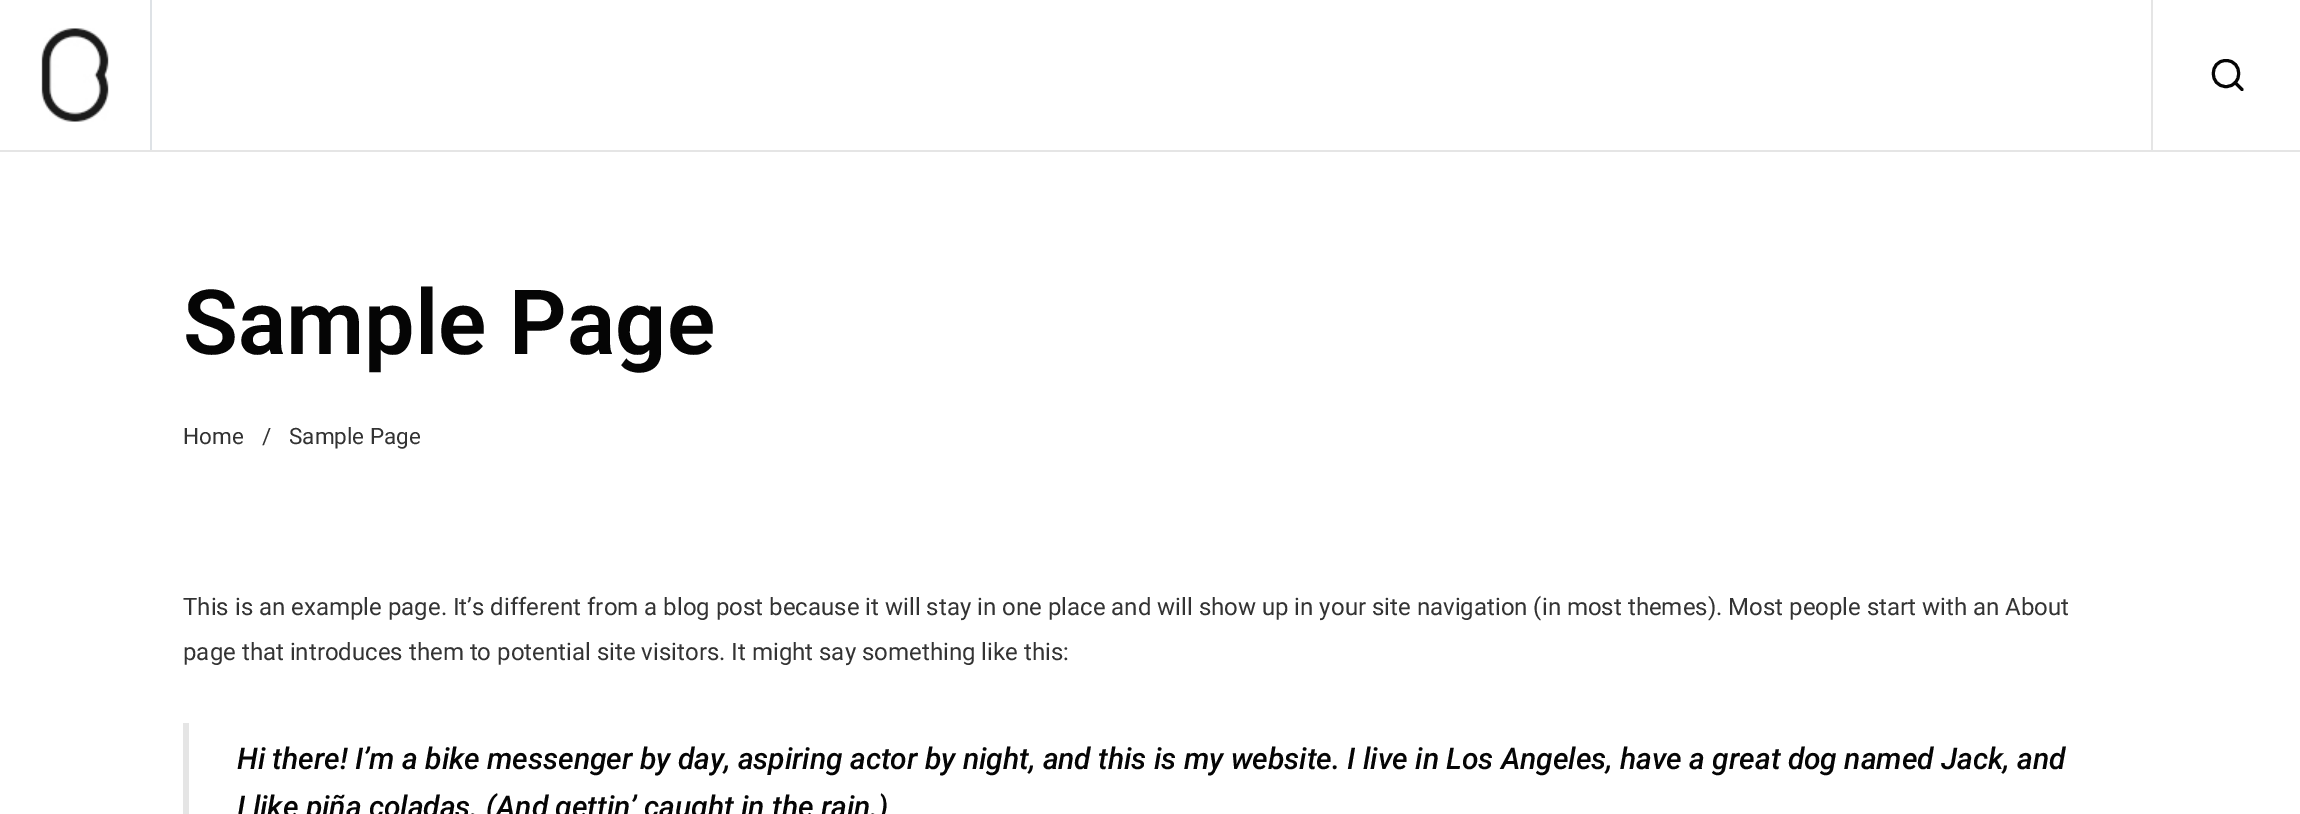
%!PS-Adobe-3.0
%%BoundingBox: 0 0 2300 814
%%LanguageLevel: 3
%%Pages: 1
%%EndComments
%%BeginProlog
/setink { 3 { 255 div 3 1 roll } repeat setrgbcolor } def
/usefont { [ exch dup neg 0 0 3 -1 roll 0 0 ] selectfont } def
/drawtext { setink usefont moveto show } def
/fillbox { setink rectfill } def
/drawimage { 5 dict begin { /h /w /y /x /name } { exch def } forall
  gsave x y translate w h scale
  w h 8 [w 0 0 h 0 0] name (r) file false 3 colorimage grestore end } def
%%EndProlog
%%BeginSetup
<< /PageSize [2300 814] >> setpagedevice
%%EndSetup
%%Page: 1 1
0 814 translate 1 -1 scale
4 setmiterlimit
0 0 2300 814 255 255 255 fillbox
0 150 2300 2 229 229 229 fillbox
150 0 2 150 222 226 230 fillbox
(assets/img1.rgb) 41 28 68 94 drawimage
2151 0 2 150 229 229 229 fillbox
5 5 5 setink
3 setlinewidth
1 setlinecap
1 setlinejoin
2226 86.5 moveto 2243 86.5 2243 60.5 2226 60.5 curveto 2209 60.5 2209 86.5 2226 86.5 curveto closepath 2242 89.5 moveto 2235 82.5 lineto stroke
(Sample Page) 183 354 /Roboto-SemiBold 90 5 5 5 drawtext
(Home) 183 444 /Roboto-Regular 22.5 51 51 51 drawtext
(/) 262 444 /Roboto-Regular 22.5 51 51 51 drawtext
(Sample Page) 289 444 /Roboto-Regular 22.5 51 51 51 drawtext
(This is an example page. It’s different from a blog post because it will stay in one place and will show up in your site navigation \(in most themes\). Most people start with an About) 183 615 /Roboto-Regular 24 51 51 51 drawtext
(page that introduces them to potential site visitors. It might say something like this:) 183 660 /Roboto-Regular 24 51 51 51 drawtext
183 723 6 91 229 229 229 fillbox
(Hi there! I’m a bike messenger by day, aspiring actor by night, and this is my website. I live in Los Angeles, have a great dog named Jack, and) 237 769 /Roboto-MediumItalic 30 5 5 5 drawtext
(I like piña coladas. \(And gettin’ caught in the rain.\)) 237 817 /Roboto-MediumItalic 30 5 5 5 drawtext
showpage
%%EOF
